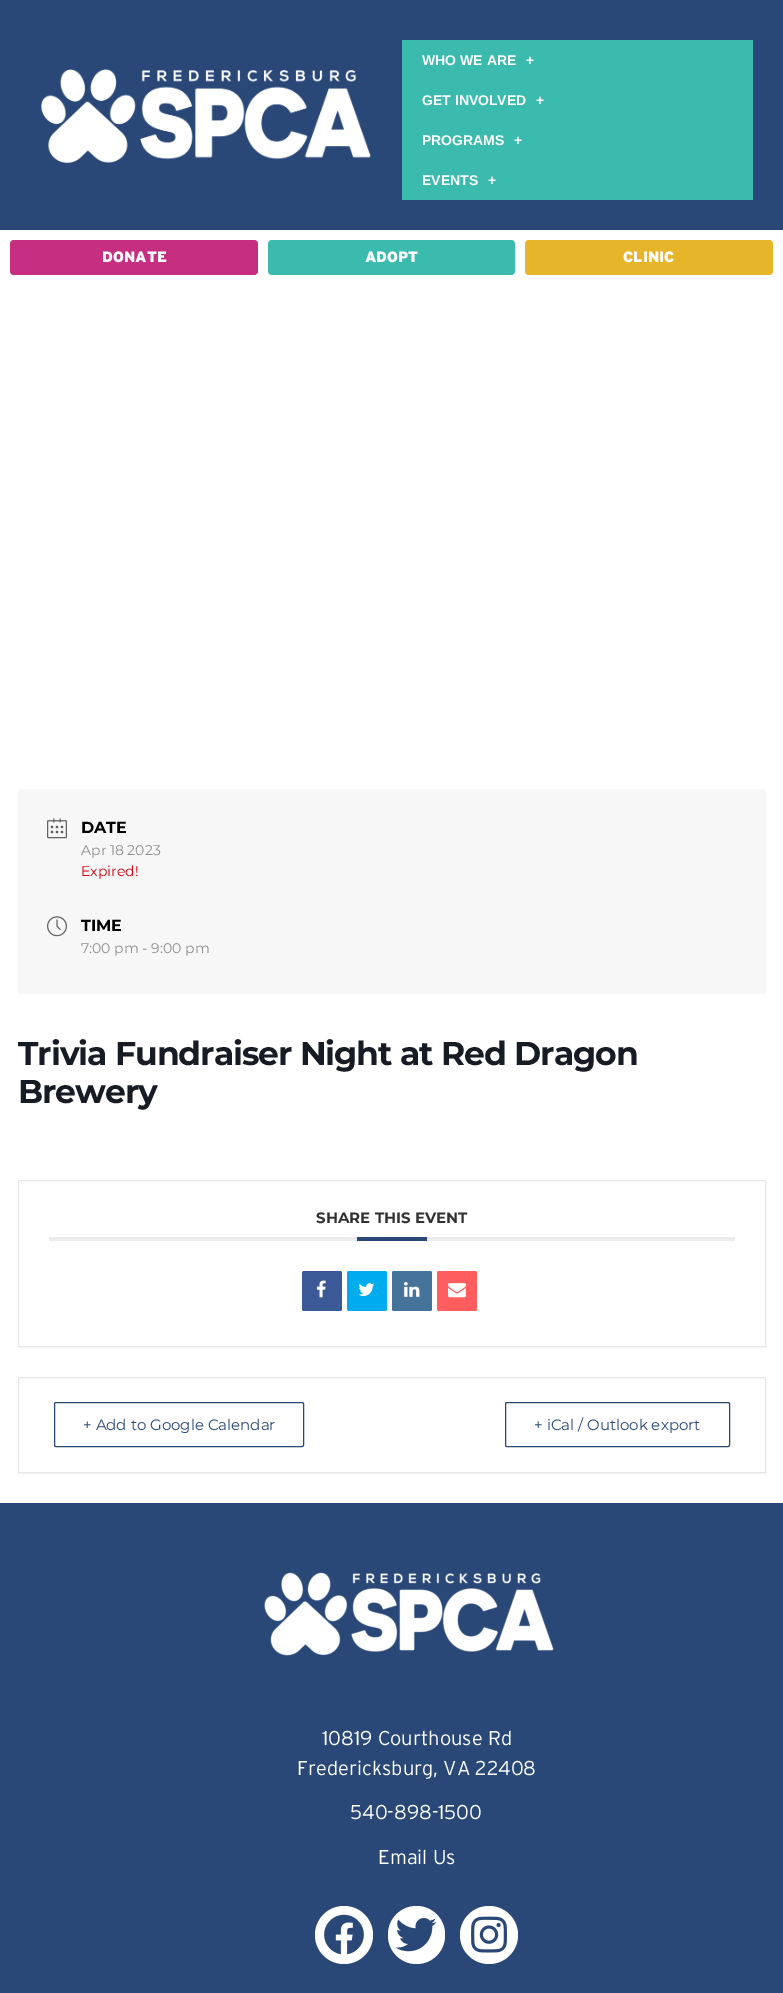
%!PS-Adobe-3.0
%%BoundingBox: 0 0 783 1993
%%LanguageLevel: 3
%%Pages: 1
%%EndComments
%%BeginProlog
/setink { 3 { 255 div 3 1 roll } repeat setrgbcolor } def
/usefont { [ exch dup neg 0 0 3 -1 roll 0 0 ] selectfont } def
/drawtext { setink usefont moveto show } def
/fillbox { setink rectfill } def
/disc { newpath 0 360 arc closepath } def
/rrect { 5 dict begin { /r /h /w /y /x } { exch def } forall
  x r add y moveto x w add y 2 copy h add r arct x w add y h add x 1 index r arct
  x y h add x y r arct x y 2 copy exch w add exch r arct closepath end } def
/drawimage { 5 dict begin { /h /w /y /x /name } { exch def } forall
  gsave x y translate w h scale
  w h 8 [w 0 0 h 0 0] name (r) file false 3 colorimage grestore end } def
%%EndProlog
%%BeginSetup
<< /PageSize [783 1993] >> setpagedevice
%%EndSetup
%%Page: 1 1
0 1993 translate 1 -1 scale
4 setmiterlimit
0 0 783 1993 255 255 255 fillbox
0 0 783 230 41 72 119 fillbox
(assets/img1.rgb) 41 69 330 95 drawimage
402 40 351 160 58 187 173 fillbox
(WHO WE ARE) 422 65 /LiberationSans-Bold 14 255 255 255 drawtext
(+) 526 65 /LiberationSans-Bold 14 255 255 255 drawtext
(GET INVOLVED) 422 105 /LiberationSans-Bold 14 255 255 255 drawtext
(+) 536 105 /LiberationSans-Bold 14 255 255 255 drawtext
(PROGRAMS) 422 145 /LiberationSans-Bold 14 255 255 255 drawtext
(+) 514 145 /LiberationSans-Bold 14 255 255 255 drawtext
(EVENTS) 422 185 /LiberationSans-Bold 14 255 255 255 drawtext
(+) 488 185 /LiberationSans-Bold 14 255 255 255 drawtext
197 46 129 setink
10 240 248 35 4 rrect fill
(DONATE) 102 262 /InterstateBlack-Black 15 255 255 255 drawtext
58 187 173 setink
268 240 247 35 4 rrect fill
(ADOPT) 365 262 /InterstateBlack-Black 15 255 255 255 drawtext
231 181 41 setink
525 240 248 35 4 rrect fill
(CLINIC) 623 262 /InterstateBlack-Black 15 255 255 255 drawtext
18 789 748 205 247 247 247 fillbox
(assets/img2.rgb) 47 818 20 21 drawimage
(DATE) 81 833 /Montserrat-Bold 16 0 0 0 drawtext
(Apr 18 2023) 81 855 /Montserrat-Regular 14 141 141 141 drawtext
(Expired!) 81 876 /Montserrat-Regular 14 216 0 12 drawtext
(assets/img3.rgb) 47 916 20 21 drawimage
(TIME) 81 931 /Montserrat-Bold 16 0 0 0 drawtext
(7:00 pm - 9:00 pm) 81 953 /Montserrat-Regular 14 141 141 141 drawtext
/Montserrat-Bold 33 usefont
23 28 36 setink
18 1065 moveto -1 0 (Trivia Fundraiser Night at Red Dragon) ashow
18 1103 moveto -1 0 (Brewery) ashow
18 1347 748 2 251 251 251 fillbox
230 230 230 setink
18.5 1180.5 747 166 rectstroke
49 1237 686 4 235 235 235 fillbox
(SHARE THIS EVENT) 316 1223 /Montserrat-Bold 15 49 49 49 drawtext
357 1237 70 4 41 72 119 fillbox
59 89 150 setink
302 1271 40 40 2 rrect fill
(assets/img4.rgb) 316 1280 10 18 drawimage
0 172 238 setink
347 1271 40 40 2 rrect fill
(assets/img5.rgb) 358 1283 17 13 drawimage
69 115 153 setink
392 1271 40 40 2 rrect fill
(assets/img6.rgb) 404 1282 16 15 drawimage
255 93 94 setink
437 1271 40 40 2 rrect fill
(assets/img7.rgb) 448 1283 18 15 drawimage
18 1473 748 2 251 251 251 fillbox
230 230 230 setink
18.5 1377.5 747 95 rectstroke
41 72 119 setink
54.5 1402.5 249 44 1.5 rrect stroke
(+ Add to Google Calendar) 83 1430 /Montserrat-Regular 15 41 72 119 drawtext
505.5 1402.5 224 44 1.5 rrect stroke
(+ iCal / Outlook export) 534 1430 /Montserrat-Regular 15 41 72 119 drawtext
0 1503 783 490 41 72 119 fillbox
(assets/img8.rgb) 264 1572 290 84 drawimage
(10819 Courthouse Rd) 322 1745 /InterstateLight-Light 20 255 255 255 drawtext
(Fredericksburg, VA 22408) 297 1775 /InterstateLight-Light 20 255 255 255 drawtext
(540-898-1500) 350 1819 /InterstateLight-Light 20 255 255 255 drawtext
(Email Us) 378 1864 /InterstateLight-Light 20 255 255 255 drawtext
344 1935 29 disc fill
(assets/img9.rgb) 324 1914 40 41 drawimage
388 1906 57 58 28.5 rrect fill
(assets/img10.rgb) 395 1918 42 34 drawimage
489 1935 29 disc fill
(assets/img11.rgb) 471 1916 36 37 drawimage
showpage
%%EOF
